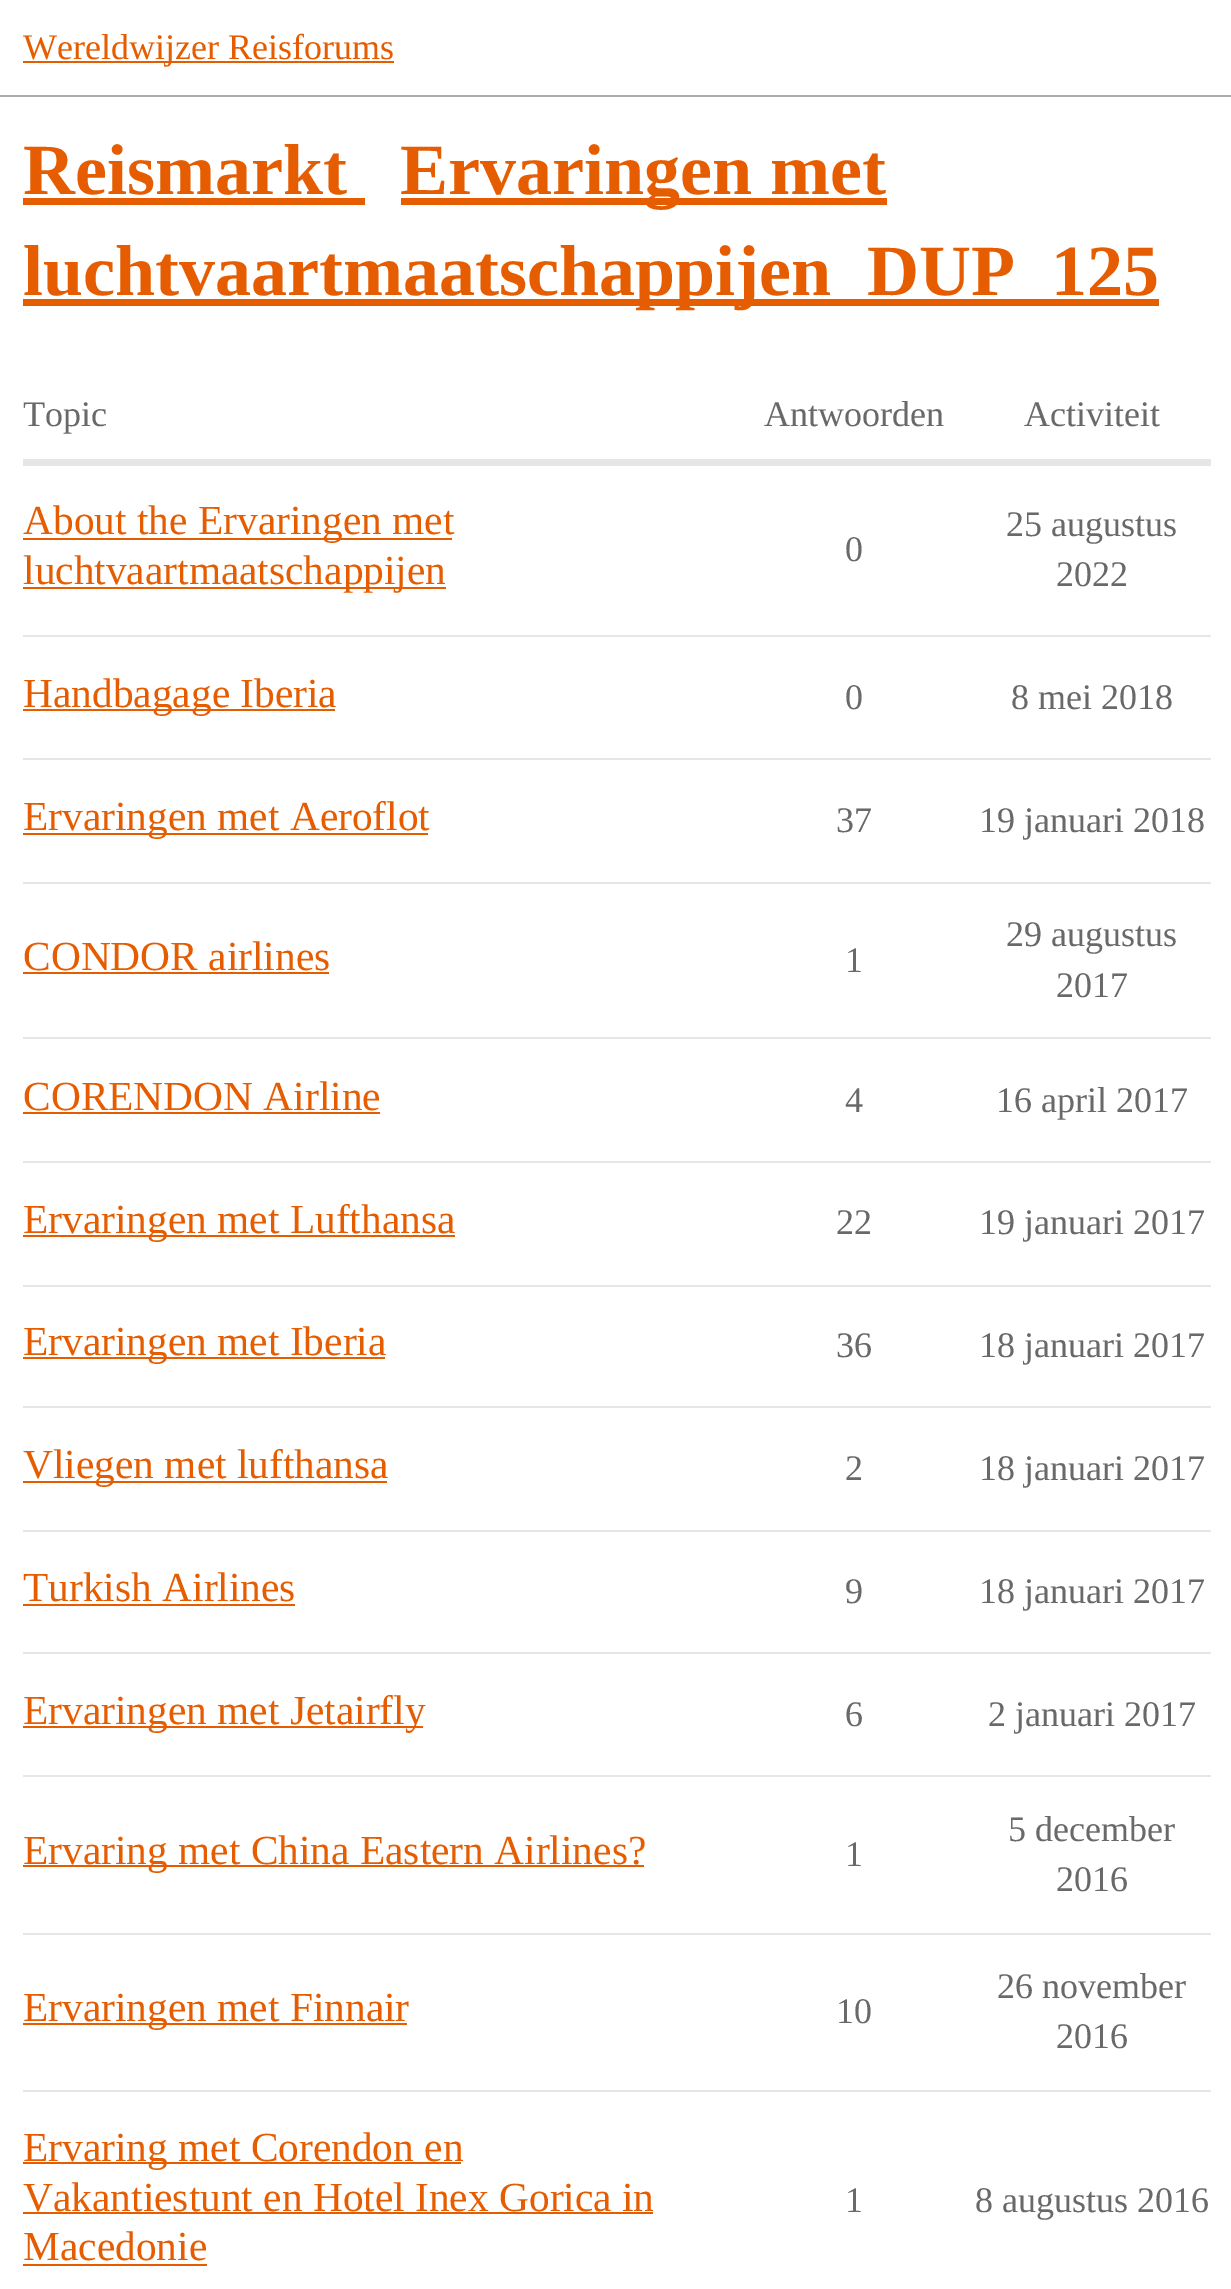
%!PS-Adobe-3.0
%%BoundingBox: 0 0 1231 2289
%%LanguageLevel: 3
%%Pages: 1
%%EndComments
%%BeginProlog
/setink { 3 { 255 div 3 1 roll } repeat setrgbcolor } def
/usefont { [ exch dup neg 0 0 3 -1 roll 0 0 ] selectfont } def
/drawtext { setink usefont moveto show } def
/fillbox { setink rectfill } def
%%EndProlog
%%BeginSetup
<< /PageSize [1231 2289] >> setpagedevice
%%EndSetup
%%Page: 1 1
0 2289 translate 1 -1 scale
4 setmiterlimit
0 0 1231 2289 255 255 255 fillbox
0 95 1231 2 171 171 171 fillbox
23 61 371 2 230 92 0 fillbox
(Wereldwijzer Reisforums) 23 59 /LiberationSerif-Regular 36 230 92 0 drawtext
(Reismarkt) 23 194 /LiberationSerif-Bold 72 230 92 0 drawtext
23 198 342 7 230 92 0 fillbox
401 198 486 7 230 92 0 fillbox
(Ervaringen met) 400 194 /LiberationSerif-Bold 72 230 92 0 drawtext
23 299 1136 7 230 92 0 fillbox
(luchtvaartmaatschappijen_DUP_125) 23 295 /LiberationSerif-Bold 72 230 92 0 drawtext
(Topic) 23 426 /LiberationSerif-Regular 36 105 105 105 drawtext
(Antwoorden) 764 426 /LiberationSerif-Regular 36 105 105 105 drawtext
(Activiteit) 1024 426 /LiberationSerif-Regular 36 105 105 105 drawtext
23 459 1188 7 230 230 230 fillbox
23 635 1188 2 230 230 230 fillbox
23 538 429 2 230 92 0 fillbox
(About the Ervaringen met) 23 534 /LiberationSerif-Regular 41.4 230 92 0 drawtext
23 587 423 2 230 92 0 fillbox
(luchtvaartmaatschappijen) 23 584 /LiberationSerif-Regular 41.4 230 92 0 drawtext
(0) 845 561 /LiberationSerif-Regular 36 105 105 105 drawtext
(25 augustus) 1006 536 /LiberationSerif-Regular 36 105 105 105 drawtext
(2022) 1056 586 /LiberationSerif-Regular 36 105 105 105 drawtext
23 758 1188 2 230 230 230 fillbox
23 709 312 2 230 92 0 fillbox
(Handbagage Iberia) 23 707 /LiberationSerif-Regular 41.4 230 92 0 drawtext
(0) 845 709 /LiberationSerif-Regular 36 105 105 105 drawtext
(8 mei 2018) 1011 709 /LiberationSerif-Regular 36 105 105 105 drawtext
23 882 1188 2 230 230 230 fillbox
23 833 405 2 230 92 0 fillbox
(Ervaringen met Aeroflot) 23 830 /LiberationSerif-Regular 41.4 230 92 0 drawtext
(37) 836 832 /LiberationSerif-Regular 36 105 105 105 drawtext
(19 januari 2018) 979 832 /LiberationSerif-Regular 36 105 105 105 drawtext
23 1037 1188 2 230 230 230 fillbox
(CONDOR airlines) 23 970 /LiberationSerif-Regular 41.4 230 92 0 drawtext
23 972 306 2 230 92 0 fillbox
(1) 845 972 /LiberationSerif-Regular 36 105 105 105 drawtext
(29 augustus) 1006 946 /LiberationSerif-Regular 36 105 105 105 drawtext
(2017) 1056 997 /LiberationSerif-Regular 36 105 105 105 drawtext
23 1161 1188 2 230 230 230 fillbox
(CORENDON Airline) 23 1110 /LiberationSerif-Regular 41.4 230 92 0 drawtext
23 1112 357 2 230 92 0 fillbox
(4) 845 1112 /LiberationSerif-Regular 36 105 105 105 drawtext
(16 april 2017) 996 1112 /LiberationSerif-Regular 36 105 105 105 drawtext
23 1285 1188 2 230 230 230 fillbox
23 1235 432 2 230 92 0 fillbox
(Ervaringen met Lufthansa) 23 1233 /LiberationSerif-Regular 41.4 230 92 0 drawtext
(22) 836 1234 /LiberationSerif-Regular 36 105 105 105 drawtext
(19 januari 2017) 979 1234 /LiberationSerif-Regular 36 105 105 105 drawtext
23 1406 1188 2 230 230 230 fillbox
23 1357 362 2 230 92 0 fillbox
(Ervaringen met Iberia) 23 1355 /LiberationSerif-Regular 41.4 230 92 0 drawtext
(36) 836 1357 /LiberationSerif-Regular 36 105 105 105 drawtext
(18 januari 2017) 979 1357 /LiberationSerif-Regular 36 105 105 105 drawtext
23 1530 1188 2 230 230 230 fillbox
23 1481 364 2 230 92 0 fillbox
(Vliegen met lufthansa) 23 1478 /LiberationSerif-Regular 41.4 230 92 0 drawtext
(2) 845 1480 /LiberationSerif-Regular 36 105 105 105 drawtext
(18 januari 2017) 979 1480 /LiberationSerif-Regular 36 105 105 105 drawtext
23 1652 1188 2 230 230 230 fillbox
(Turkish Airlines) 23 1601 /LiberationSerif-Regular 41.4 230 92 0 drawtext
23 1604 272 2 230 92 0 fillbox
(9) 845 1603 /LiberationSerif-Regular 36 105 105 105 drawtext
(18 januari 2017) 979 1603 /LiberationSerif-Regular 36 105 105 105 drawtext
23 1775 1188 2 230 230 230 fillbox
23 1726 400 2 230 92 0 fillbox
(Ervaringen met Jetairfly) 23 1724 /LiberationSerif-Regular 41.4 230 92 0 drawtext
(6) 845 1726 /LiberationSerif-Regular 36 105 105 105 drawtext
(2 januari 2017) 988 1726 /LiberationSerif-Regular 36 105 105 105 drawtext
23 1933 1188 2 230 230 230 fillbox
23 1865 621 2 230 92 0 fillbox
(Ervaring met China Eastern Airlines?) 23 1864 /LiberationSerif-Regular 41.4 230 92 0 drawtext
(1) 845 1866 /LiberationSerif-Regular 36 105 105 105 drawtext
(5 december) 1008 1841 /LiberationSerif-Regular 36 105 105 105 drawtext
(2016) 1056 1891 /LiberationSerif-Regular 36 105 105 105 drawtext
23 2090 1188 2 230 230 230 fillbox
23 2023 384 2 230 92 0 fillbox
(Ervaringen met Finnair) 23 2021 /LiberationSerif-Regular 41.4 230 92 0 drawtext
(10) 836 2023 /LiberationSerif-Regular 36 105 105 105 drawtext
(26 november) 997 1998 /LiberationSerif-Regular 36 105 105 105 drawtext
(2016) 1056 2048 /LiberationSerif-Regular 36 105 105 105 drawtext
23 2162 438 2 230 92 0 fillbox
(Ervaring met Corendon en) 23 2161 /LiberationSerif-Regular 41.4 230 92 0 drawtext
(Vakantiestunt en Hotel Inex Gorica in) 23 2211 /LiberationSerif-Regular 41.4 230 92 0 drawtext
23 2212 630 2 230 92 0 fillbox
(Macedonie) 23 2260 /LiberationSerif-Regular 41.4 230 92 0 drawtext
23 2264 184 2 230 92 0 fillbox
(1) 845 2212 /LiberationSerif-Regular 36 105 105 105 drawtext
(8 augustus 2016) 975 2212 /LiberationSerif-Regular 36 105 105 105 drawtext
showpage
%%EOF
